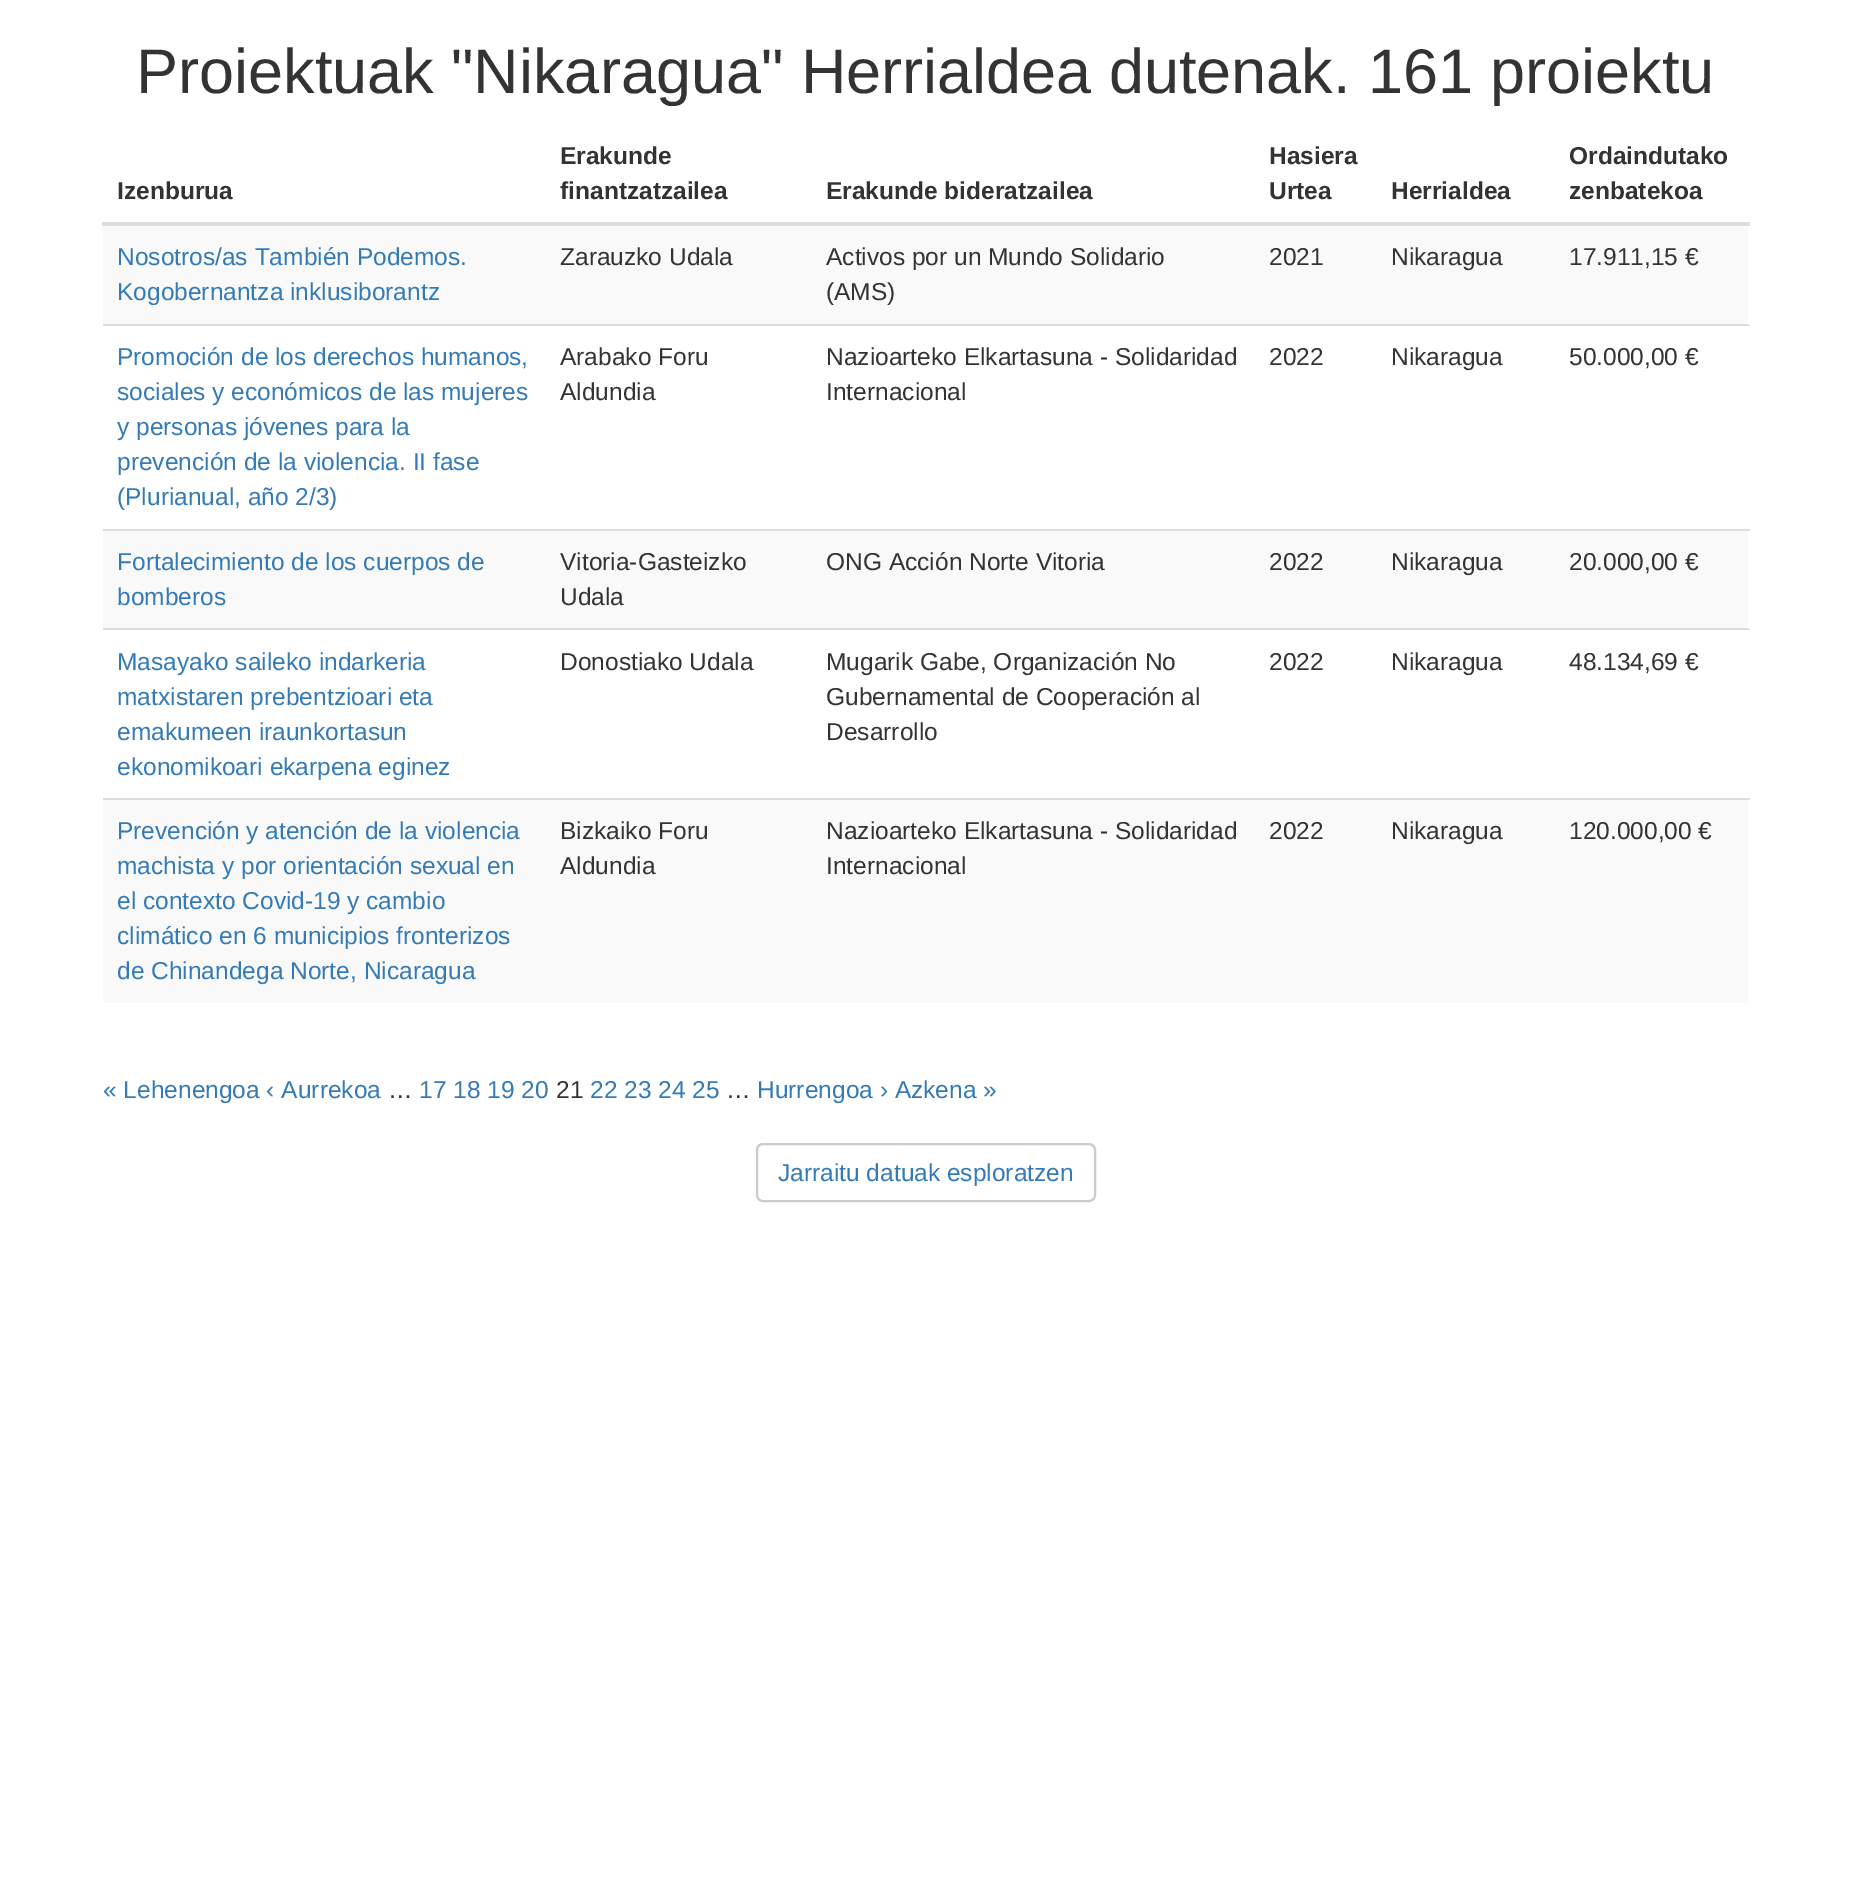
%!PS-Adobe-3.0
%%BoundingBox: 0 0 1850 1886
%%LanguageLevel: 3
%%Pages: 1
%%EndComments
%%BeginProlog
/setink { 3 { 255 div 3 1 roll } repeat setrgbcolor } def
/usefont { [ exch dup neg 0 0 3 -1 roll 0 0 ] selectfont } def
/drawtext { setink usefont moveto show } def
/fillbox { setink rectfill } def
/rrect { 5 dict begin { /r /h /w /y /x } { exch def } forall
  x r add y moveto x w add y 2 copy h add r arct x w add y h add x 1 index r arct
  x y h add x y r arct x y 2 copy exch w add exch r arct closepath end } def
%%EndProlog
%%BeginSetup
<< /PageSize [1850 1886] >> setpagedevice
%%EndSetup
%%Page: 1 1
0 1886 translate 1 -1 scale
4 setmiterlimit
0 0 1850 1886 255 255 255 fillbox
(Proiektuak "Nikaragua" Herrialdea dutenak. 161 proiektu) 136 93 /LiberationSans-Regular 63 51 51 51 drawtext
(Izenburua) 117 199 /LiberationSans-Bold 24.5 51 51 51 drawtext
(Erakunde) 560 164 /LiberationSans-Bold 24.5 51 51 51 drawtext
(finantzatzailea) 560 199 /LiberationSans-Bold 24.5 51 51 51 drawtext
(Erakunde bideratzailea) 826 199 /LiberationSans-Bold 24.5 51 51 51 drawtext
(Hasiera) 1269 164 /LiberationSans-Bold 24.5 51 51 51 drawtext
(Urtea) 1269 199 /LiberationSans-Bold 24.5 51 51 51 drawtext
(Herrialdea) 1391 199 /LiberationSans-Bold 24.5 51 51 51 drawtext
102 222 1648 4 221 221 221 fillbox
(Ordaindutako) 1569 164 /LiberationSans-Bold 24.5 51 51 51 drawtext
(zenbatekoa) 1569 199 /LiberationSans-Bold 24.5 51 51 51 drawtext
103 226 1645 98 249 249 249 fillbox
(Nosotros/as También Podemos.) 117 265 /LiberationSans-Regular 24.5 51 122 183 drawtext
(Kogobernantza inklusiborantz) 117 300 /LiberationSans-Regular 24.5 51 122 183 drawtext
(Zarauzko Udala) 560 265 /LiberationSans-Regular 24.5 51 51 51 drawtext
(Activos por un Mundo Solidario) 826 265 /LiberationSans-Regular 24.5 51 51 51 drawtext
(\(AMS\)) 826 300 /LiberationSans-Regular 24.5 51 51 51 drawtext
(2021) 1269 265 /LiberationSans-Regular 24.5 51 51 51 drawtext
(Nikaragua) 1391 265 /LiberationSans-Regular 24.5 51 51 51 drawtext
(17.911,15 €) 1569 265 /LiberationSans-Regular 24.5 51 51 51 drawtext
(Promoción de los derechos humanos,) 117 365 /LiberationSans-Regular 24.5 51 122 183 drawtext
(sociales y económicos de las mujeres) 117 400 /LiberationSans-Regular 24.5 51 122 183 drawtext
(y personas jóvenes para la) 117 435 /LiberationSans-Regular 24.5 51 122 183 drawtext
(prevención de la violencia. II fase) 117 470 /LiberationSans-Regular 24.5 51 122 183 drawtext
(\(Plurianual, año 2/3\)) 117 505 /LiberationSans-Regular 24.5 51 122 183 drawtext
(Arabako Foru) 560 365 /LiberationSans-Regular 24.5 51 51 51 drawtext
(Aldundia) 560 400 /LiberationSans-Regular 24.5 51 51 51 drawtext
(Nazioarteko Elkartasuna - Solidaridad) 826 365 /LiberationSans-Regular 24.5 51 51 51 drawtext
(Internacional) 826 400 /LiberationSans-Regular 24.5 51 51 51 drawtext
(2022) 1269 365 /LiberationSans-Regular 24.5 51 51 51 drawtext
(Nikaragua) 1391 365 /LiberationSans-Regular 24.5 51 51 51 drawtext
103 324 1647 2 221 221 221 fillbox
(50.000,00 €) 1569 365 /LiberationSans-Regular 24.5 51 51 51 drawtext
103 531 1645 97 249 249 249 fillbox
(Fortalecimiento de los cuerpos de) 117 570 /LiberationSans-Regular 24.5 51 122 183 drawtext
(bomberos) 117 605 /LiberationSans-Regular 24.5 51 122 183 drawtext
(Vitoria-Gasteizko) 560 570 /LiberationSans-Regular 24.5 51 51 51 drawtext
(Udala) 560 605 /LiberationSans-Regular 24.5 51 51 51 drawtext
(ONG Acción Norte Vitoria) 826 570 /LiberationSans-Regular 24.5 51 51 51 drawtext
(2022) 1269 570 /LiberationSans-Regular 24.5 51 51 51 drawtext
(Nikaragua) 1391 570 /LiberationSans-Regular 24.5 51 51 51 drawtext
103 529 1647 2 221 221 221 fillbox
(20.000,00 €) 1569 570 /LiberationSans-Regular 24.5 51 51 51 drawtext
(Masayako saileko indarkeria) 117 670 /LiberationSans-Regular 24.5 51 122 183 drawtext
(matxistaren prebentzioari eta) 117 705 /LiberationSans-Regular 24.5 51 122 183 drawtext
(emakumeen iraunkortasun) 117 740 /LiberationSans-Regular 24.5 51 122 183 drawtext
(ekonomikoari ekarpena eginez) 117 775 /LiberationSans-Regular 24.5 51 122 183 drawtext
(Donostiako Udala) 560 670 /LiberationSans-Regular 24.5 51 51 51 drawtext
(Mugarik Gabe, Organización No) 826 670 /LiberationSans-Regular 24.5 51 51 51 drawtext
(Gubernamental de Cooperación al) 826 705 /LiberationSans-Regular 24.5 51 51 51 drawtext
(Desarrollo) 826 740 /LiberationSans-Regular 24.5 51 51 51 drawtext
(2022) 1269 670 /LiberationSans-Regular 24.5 51 51 51 drawtext
(Nikaragua) 1391 670 /LiberationSans-Regular 24.5 51 51 51 drawtext
103 628 1647 2 221 221 221 fillbox
(48.134,69 €) 1569 670 /LiberationSans-Regular 24.5 51 51 51 drawtext
103 800 1645 203 249 249 249 fillbox
(Prevención y atención de la violencia) 117 839 /LiberationSans-Regular 24.5 51 122 183 drawtext
(machista y por orientación sexual en) 117 874 /LiberationSans-Regular 24.5 51 122 183 drawtext
(el contexto Covid-19 y cambio) 117 909 /LiberationSans-Regular 24.5 51 122 183 drawtext
(climático en 6 municipios fronterizos) 117 944 /LiberationSans-Regular 24.5 51 122 183 drawtext
(de Chinandega Norte, Nicaragua) 117 979 /LiberationSans-Regular 24.5 51 122 183 drawtext
(Bizkaiko Foru) 560 839 /LiberationSans-Regular 24.5 51 51 51 drawtext
(Aldundia) 560 874 /LiberationSans-Regular 24.5 51 51 51 drawtext
(Nazioarteko Elkartasuna - Solidaridad) 826 839 /LiberationSans-Regular 24.5 51 51 51 drawtext
(Internacional) 826 874 /LiberationSans-Regular 24.5 51 51 51 drawtext
(2022) 1269 839 /LiberationSans-Regular 24.5 51 51 51 drawtext
(Nikaragua) 1391 839 /LiberationSans-Regular 24.5 51 51 51 drawtext
103 798 1647 2 221 221 221 fillbox
(120.000,00 €) 1569 839 /LiberationSans-Regular 24.5 51 51 51 drawtext
(« Lehenengoa ‹ Aurrekoa) 103 1098 /LiberationSans-Regular 24.5 51 122 183 drawtext
(…) 388 1098 /LiberationSans-Regular 24.5 51 51 51 drawtext
(17 18 19 20) 419 1098 /LiberationSans-Regular 24.5 51 122 183 drawtext
(21) 556 1098 /LiberationSans-Regular 24.5 51 51 51 drawtext
(22 23 24 25) 590 1098 /LiberationSans-Regular 24.5 51 122 183 drawtext
(…) 726 1098 /LiberationSans-Regular 24.5 51 51 51 drawtext
(Hurrengoa › Azkena ») 757 1098 /LiberationSans-Regular 24.5 51 122 183 drawtext
204 204 204 setink
2 setlinewidth
757 1144 338 57 6 rrect stroke
(Jarraitu datuak esploratzen) 778 1181 /LiberationSans-Regular 24.5 51 122 183 drawtext
showpage
%%EOF
